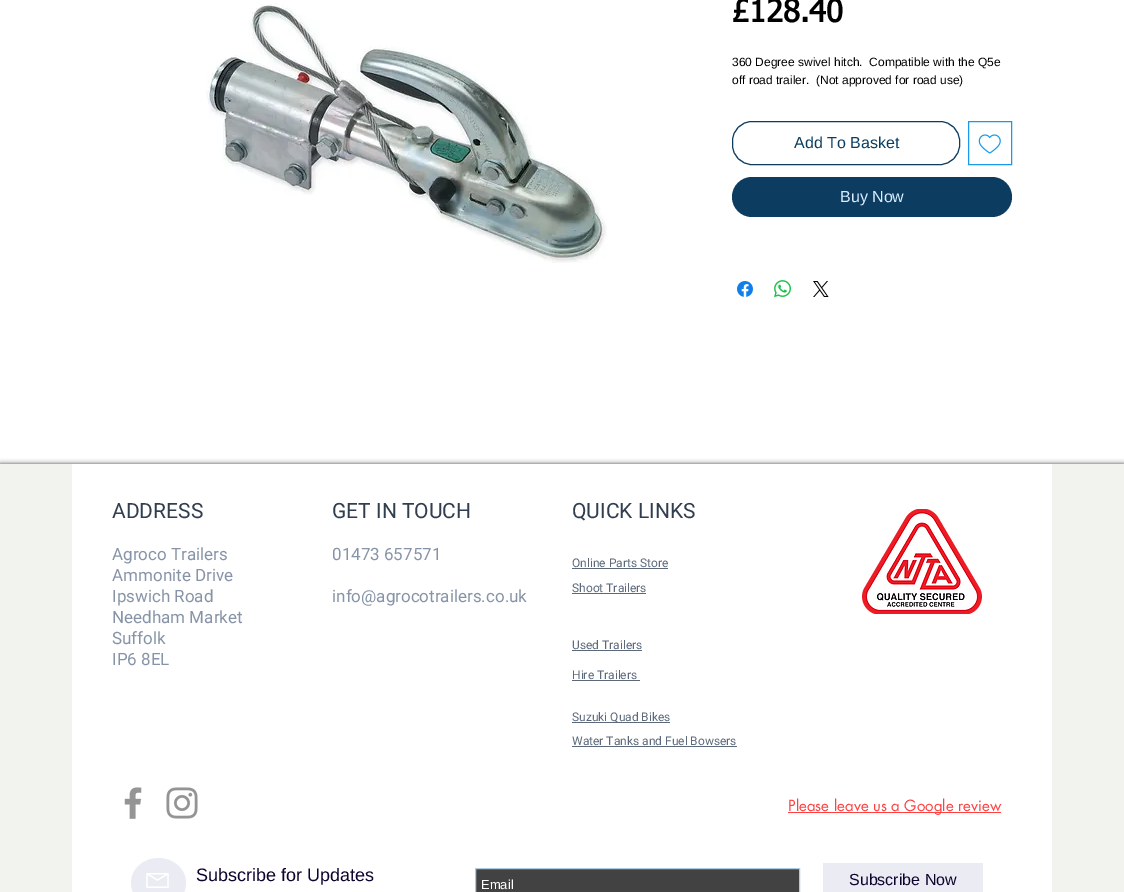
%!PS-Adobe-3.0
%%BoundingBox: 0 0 1124 892
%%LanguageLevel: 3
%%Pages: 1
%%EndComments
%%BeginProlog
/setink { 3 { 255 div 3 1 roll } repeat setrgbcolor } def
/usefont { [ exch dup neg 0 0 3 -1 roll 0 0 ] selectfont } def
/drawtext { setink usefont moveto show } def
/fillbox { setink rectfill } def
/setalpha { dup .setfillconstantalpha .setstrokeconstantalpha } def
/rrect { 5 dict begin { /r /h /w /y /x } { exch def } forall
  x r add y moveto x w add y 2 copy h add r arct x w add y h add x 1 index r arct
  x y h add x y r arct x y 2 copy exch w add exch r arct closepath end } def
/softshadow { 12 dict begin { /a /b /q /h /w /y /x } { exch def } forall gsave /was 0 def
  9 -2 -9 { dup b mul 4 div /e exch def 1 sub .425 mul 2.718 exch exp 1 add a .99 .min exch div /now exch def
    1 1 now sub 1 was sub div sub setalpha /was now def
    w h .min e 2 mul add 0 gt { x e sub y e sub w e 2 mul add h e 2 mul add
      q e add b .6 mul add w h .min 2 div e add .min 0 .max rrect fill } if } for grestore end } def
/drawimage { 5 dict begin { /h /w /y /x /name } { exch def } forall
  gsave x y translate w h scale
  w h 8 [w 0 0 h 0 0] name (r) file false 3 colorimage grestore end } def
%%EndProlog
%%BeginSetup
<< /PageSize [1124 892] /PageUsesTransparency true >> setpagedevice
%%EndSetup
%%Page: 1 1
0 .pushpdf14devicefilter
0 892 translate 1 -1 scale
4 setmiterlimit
0 0 1124 892 255 255 255 fillbox
(assets/img1.rgb) 206 3 401 260 drawimage
(£128.40) 732 22 /tahoma-Bold 31 0 0 0 drawtext
(360 Degree swivel hitch.  Compatible with the Q5e) 732 66 /LiberationSans-Regular 12 0 0 0 drawtext
(off road trailer.  \(Not approved for road use\)) 732 84 /LiberationSans-Regular 12 0 0 0 drawtext
12 60 96 setink
732.5 121.5 227 43 19.5 rrect stroke
(Add To Basket) 794 148 /LiberationSans-Regular 16 12 60 96 drawtext
27 153 232 setink
968.5 121.5 43 43 rectstroke
(assets/img2.rgb) 978 134 23 20 drawimage
12 60 96 setink
732 177 280 40 20 rrect fill
(Buy Now) 840 202 /LiberationSans-Regular 16 218 237 255 drawtext
(assets/img3.rgb) 737 281 16 16 drawimage
(assets/img4.rgb) 774 280 17 17 drawimage
(assets/img5.rgb) 813 281 16 16 drawimage
0 0 0 setink
0 464 1124 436 0 2.5 0.7 softshadow
0 464 1124 428 242 242 238 fillbox
72 464 980 428 255 255 255 fillbox
(ADDRESS) 112 518 /Roboto-Regular 21 49 62 79 drawtext
(Agroco Trailers) 112 560 /Roboto-Regular 17 135 148 167 drawtext
(Ammonite Drive) 112 581 /Roboto-Regular 17 135 148 167 drawtext
(Ipswich Road) 112 602 /Roboto-Regular 17 135 148 167 drawtext
(Needham Market) 112 623 /Roboto-Regular 17 135 148 167 drawtext
(Suffolk) 112 644 /Roboto-Regular 17 135 148 167 drawtext
(IP6 8EL) 112 665 /Roboto-Regular 17 135 148 167 drawtext
(GET IN TOUCH) 332 518 /Roboto-Regular 21 49 62 79 drawtext
(01473 657571) 332 560 /Roboto-Regular 17 135 148 167 drawtext
(info@agrocotrailers.co.uk) 332 602 /Roboto-Regular 17 135 148 167 drawtext
(QUICK LINKS) 572 518 /Roboto-Regular 21 49 62 79 drawtext
(assets/img6.rgb) 862 509 120 105 drawimage
(Online Parts Store) 572 567 /Roboto-Regular 12 92 105 123 drawtext
572 568 96 1 92 105 123 fillbox
(Shoot Trailers) 572 592 /Roboto-Regular 12 92 105 123 drawtext
572 593 74 1 92 105 123 fillbox
(Used Trailers) 572 649 /Roboto-Regular 12 92 105 123 drawtext
572 650 70 1 92 105 123 fillbox
(Hire Trailers) 572 679 /Roboto-Regular 12 92 105 123 drawtext
572 680 68 1 92 105 123 fillbox
572 722 98 1 92 105 123 fillbox
(Suzuki Quad Bikes) 572 721 /Roboto-Regular 12 92 105 123 drawtext
(Water Tanks and Fuel Bowsers) 572 745 /Roboto-Regular 12 92 105 123 drawtext
572 746 165 1 92 105 123 fillbox
(assets/img7.rgb) 124 787 18 32 drawimage
(assets/img8.rgb) 166 787 32 32 drawimage
788 812 213 1 255 64 64 fillbox
(Please leave us a Google review) 788 811 /futura-Regular 15 255 64 64 drawtext
235 236 243 setink
158.5 858 moveto 173.5 858 186 869 186 883 curveto 186 897 173.5 908 158.5 908 curveto 143.5 908 131 897 131 883 curveto 131 869 143.5 858 158.5 858 curveto closepath fill
(assets/img9.rgb) 146 873 23 15 drawimage
(Subscribe for Updates) 196 881 /LiberationSans-Regular 18 14 3 46 drawtext
66 66 66 setink
475.5 868.5 moveto 799.5 868.5 lineto 799.5 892.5 lineto 475.5 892.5 lineto closepath gsave fill grestore
175 203 224 setink
stroke
(Email) 481 889 /LiberationSans-Regular 13 255 255 255 drawtext
823 863 160 29 235 236 243 fillbox
(Subscribe Now) 849 885 /LiberationSans-Regular 16 14 3 46 drawtext
.poppdf14devicefilter showpage
%%EOF
